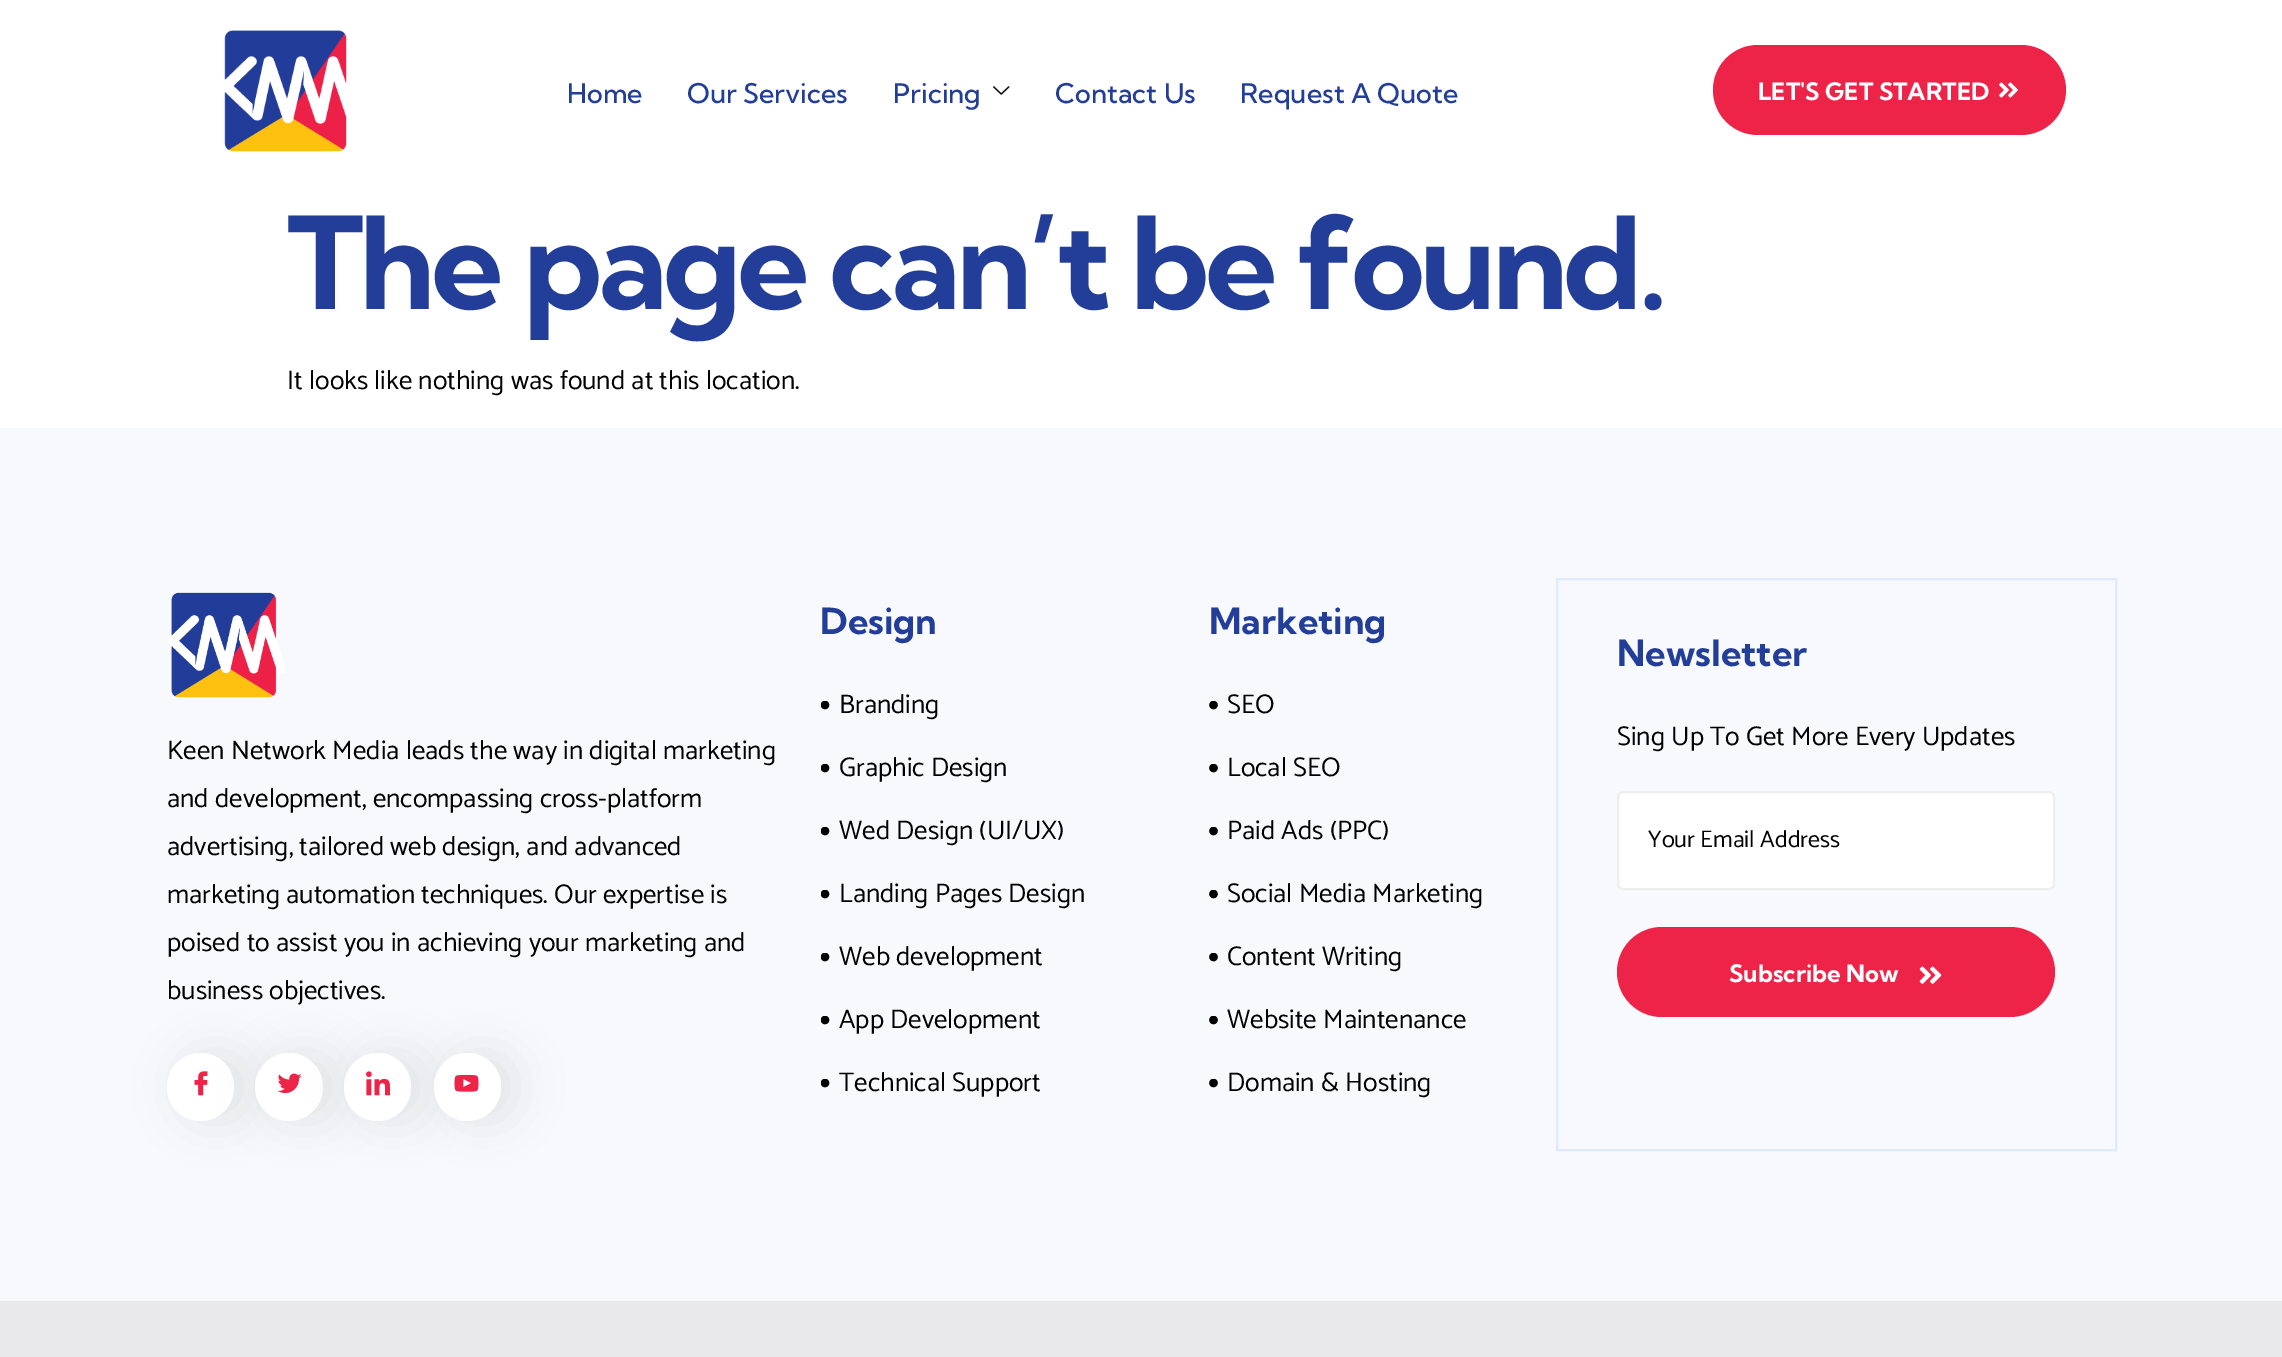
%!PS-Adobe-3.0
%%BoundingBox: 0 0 2282 1357
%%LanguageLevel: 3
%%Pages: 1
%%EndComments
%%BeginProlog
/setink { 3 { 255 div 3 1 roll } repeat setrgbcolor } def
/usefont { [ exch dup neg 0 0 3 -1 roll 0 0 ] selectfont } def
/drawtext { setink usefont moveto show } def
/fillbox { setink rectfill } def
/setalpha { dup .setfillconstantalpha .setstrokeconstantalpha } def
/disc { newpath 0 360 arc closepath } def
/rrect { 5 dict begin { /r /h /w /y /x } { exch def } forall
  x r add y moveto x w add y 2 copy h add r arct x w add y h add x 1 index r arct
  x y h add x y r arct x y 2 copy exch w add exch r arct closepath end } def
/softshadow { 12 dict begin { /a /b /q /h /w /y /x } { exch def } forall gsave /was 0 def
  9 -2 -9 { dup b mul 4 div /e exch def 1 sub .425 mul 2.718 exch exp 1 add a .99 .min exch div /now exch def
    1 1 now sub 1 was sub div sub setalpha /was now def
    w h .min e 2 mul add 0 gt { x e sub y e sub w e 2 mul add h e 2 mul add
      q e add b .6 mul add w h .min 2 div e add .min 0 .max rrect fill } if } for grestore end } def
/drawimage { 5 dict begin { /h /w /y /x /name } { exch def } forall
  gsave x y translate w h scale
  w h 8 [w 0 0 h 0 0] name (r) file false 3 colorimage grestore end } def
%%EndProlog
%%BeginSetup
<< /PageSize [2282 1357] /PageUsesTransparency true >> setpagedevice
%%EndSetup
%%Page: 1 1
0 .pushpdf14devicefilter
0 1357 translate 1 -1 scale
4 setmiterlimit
0 0 2282 1357 255 255 255 fillbox
(assets/img1.rgb) 224 30 123 122 drawimage
(Home) 567 103 /KumbhSans-Medium 27 35 62 153 drawtext
(Our Services) 687 103 /KumbhSans-Medium 27 35 62 153 drawtext
(Pricing) 893 103 /KumbhSans-Medium 27 35 62 153 drawtext
(assets/img2.rgb) 993 86 17 9 drawimage
(Contact Us) 1055 103 /KumbhSans-Medium 27 35 62 153 drawtext
(Request A Quote) 1240 103 /KumbhSans-Medium 27 35 62 153 drawtext
238 35 72 setink
1713 45 353 90 45 rrect fill
(LET'S GET STARTED) 1758 100 /KumbhSans-Bold 24 255 255 255 drawtext
(assets/img3.rgb) 1999 82 19 16 drawimage
/KumbhSans-Bold 127.5 usefont
35 62 153 setink
287 309 moveto -4.5 0 (The page can’t be found.) ashow
(It looks like nothing was found at this location.) 287 389 /Catamaran-Regular 27 0 0 0 drawtext
0 428 2282 873 247 249 253 fillbox
(assets/img4.rgb) 168 592 118 106 drawimage
(Keen Network Media leads the way in digital marketing) 167 759 /Catamaran-Regular 27 0 0 0 drawtext
(and development, encompassing cross-platform) 167 807 /Catamaran-Regular 27 0 0 0 drawtext
(advertising, tailored web design, and advanced) 167 855 /Catamaran-Regular 27 0 0 0 drawtext
(marketing automation techniques. Our expertise is) 167 903 /Catamaran-Regular 27 0 0 0 drawtext
(poised to assist you in achieving your marketing and) 167 951 /Catamaran-Regular 27 0 0 0 drawtext
(business objectives.) 167 999 /Catamaran-Regular 27 0 0 0 drawtext
175 175 175 setink
182 1053 67 68 33.5 22.5 0.3 softshadow
255 255 255 setink
167 1053 67 68 33.5 rrect fill
(assets/img5.rgb) 194 1071 14 25 drawimage
175 175 175 setink
270 1053 68 68 34 22.5 0.3 softshadow
255 255 255 setink
289 1087 34 disc fill
(assets/img6.rgb) 277 1073 25 21 drawimage
175 175 175 setink
359 1053 67 68 33.5 22.5 0.3 softshadow
255 255 255 setink
344 1053 67 68 33.5 rrect fill
(assets/img7.rgb) 366 1071 24 25 drawimage
175 175 175 setink
449 1053 67 68 33.5 22.5 0.3 softshadow
255 255 255 setink
434 1053 67 68 33.5 rrect fill
(assets/img8.rgb) 454 1074 25 18 drawimage
(Design) 820 634 /KumbhSans-Bold 36 35 62 153 drawtext
(assets/img9.rgb) 821 701 9 9 drawimage
(Branding) 839 713 /Catamaran-Regular 27 0 0 0 drawtext
(assets/img9.rgb) 821 764 9 9 drawimage
(Graphic Design) 839 776 /Catamaran-Regular 27 0 0 0 drawtext
(assets/img9.rgb) 821 827 9 9 drawimage
(Wed Design \(UI/UX\)) 839 839 /Catamaran-Regular 27 0 0 0 drawtext
(assets/img9.rgb) 821 890 9 9 drawimage
(Landing Pages Design) 839 902 /Catamaran-Regular 27 0 0 0 drawtext
(assets/img9.rgb) 821 953 9 9 drawimage
(Web development) 839 965 /Catamaran-Regular 27 0 0 0 drawtext
(assets/img9.rgb) 821 1016 9 9 drawimage
(App Development) 839 1028 /Catamaran-Regular 27 0 0 0 drawtext
(assets/img9.rgb) 821 1079 9 9 drawimage
(Technical Support) 839 1091 /Catamaran-Regular 27 0 0 0 drawtext
(Marketing) 1209 634 /KumbhSans-Bold 36 35 62 153 drawtext
(assets/img10.rgb) 1209 701 9 9 drawimage
(SEO) 1227 713 /Catamaran-Regular 27 0 0 0 drawtext
(assets/img10.rgb) 1209 764 9 9 drawimage
(Local SEO) 1227 776 /Catamaran-Regular 27 0 0 0 drawtext
(assets/img10.rgb) 1209 827 9 9 drawimage
(Paid Ads \(PPC\)) 1227 839 /Catamaran-Regular 27 0 0 0 drawtext
(assets/img10.rgb) 1209 890 9 9 drawimage
(Social Media Marketing) 1227 902 /Catamaran-Regular 27 0 0 0 drawtext
(assets/img10.rgb) 1209 953 9 9 drawimage
(Content Writing) 1227 965 /Catamaran-Regular 27 0 0 0 drawtext
(assets/img10.rgb) 1209 1016 9 9 drawimage
(Website Maintenance) 1227 1028 /Catamaran-Regular 27 0 0 0 drawtext
(assets/img10.rgb) 1209 1079 9 9 drawimage
(Domain & Hosting) 1227 1091 /Catamaran-Regular 27 0 0 0 drawtext
222 234 253 setink
2 setlinewidth
1557 579 559 571 rectstroke
(Newsletter) 1617 666 /KumbhSans-Bold 36 35 62 153 drawtext
(Sing Up To Get More Every Updates) 1617 745 /Catamaran-Regular 27 0 0 0 drawtext
255 255 255 setink
1618 792 436 97 5 rrect gsave fill grestore
238 238 238 setink
stroke
(Your Email Address) 1648 847 /Catamaran-Regular 24 0 0 0 drawtext
238 35 72 setink
1617 927 438 90 45 rrect fill
(Subscribe Now) 1729 982 /KumbhSans-Bold 24 255 255 255 drawtext
(assets/img11.rgb) 1919 966 23 18 drawimage
0 1301 2282 56 233 233 236 fillbox
.poppdf14devicefilter showpage
%%EOF
